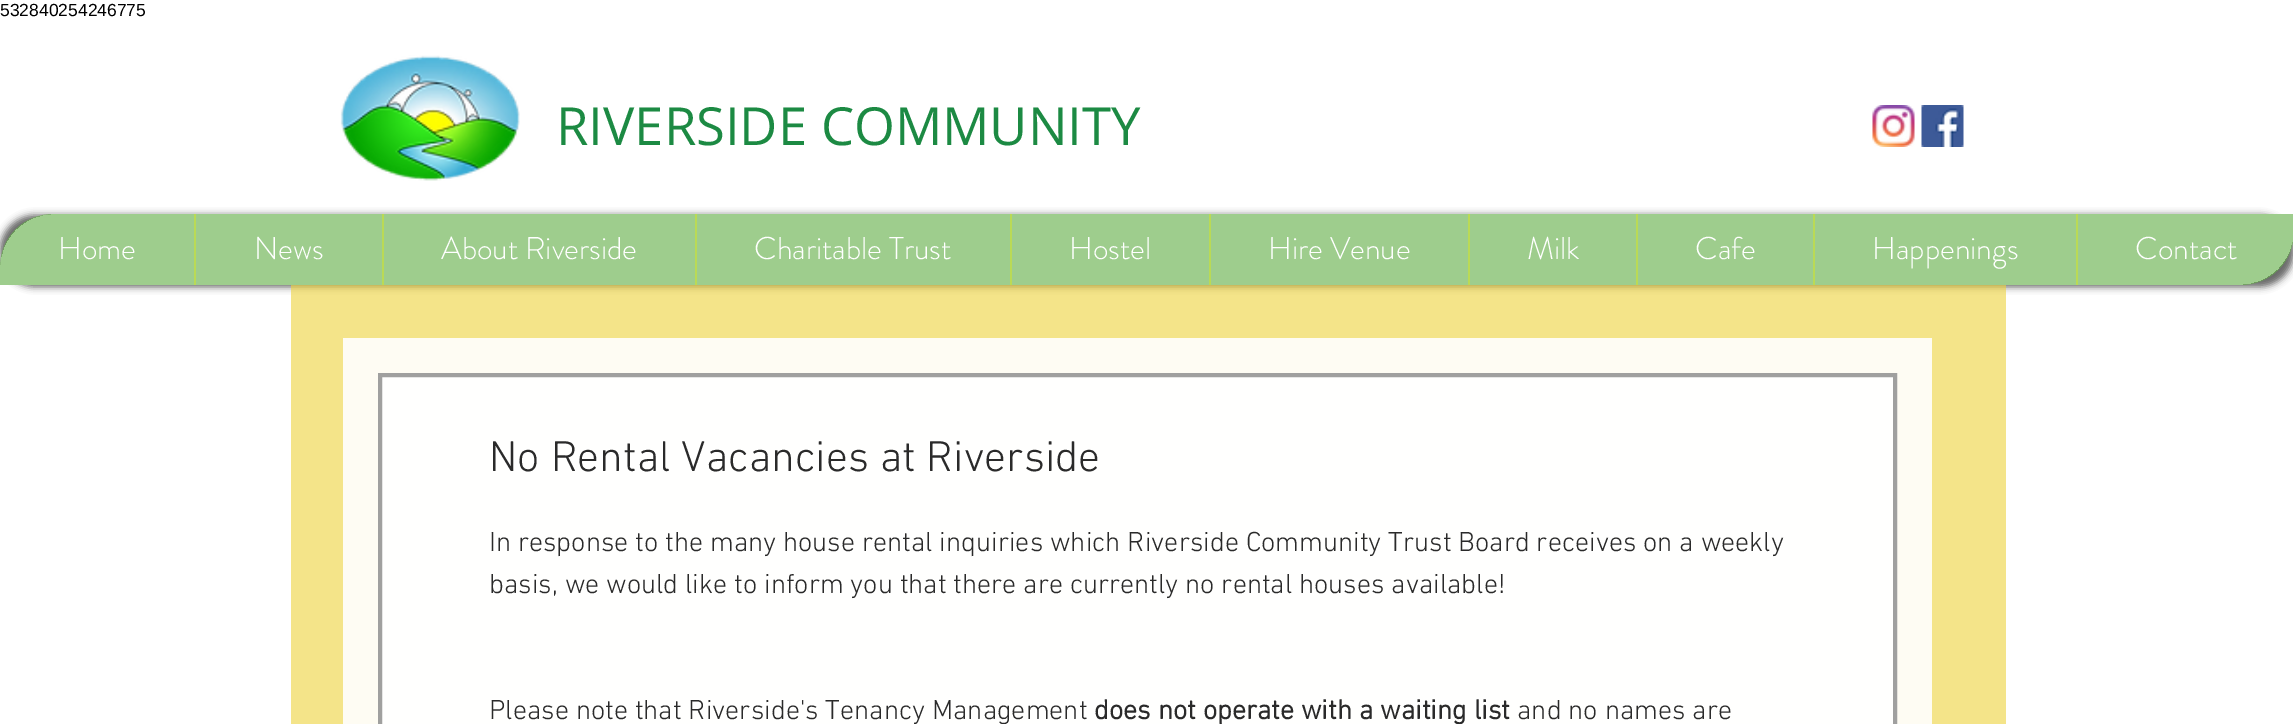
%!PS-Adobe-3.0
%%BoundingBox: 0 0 2293 724
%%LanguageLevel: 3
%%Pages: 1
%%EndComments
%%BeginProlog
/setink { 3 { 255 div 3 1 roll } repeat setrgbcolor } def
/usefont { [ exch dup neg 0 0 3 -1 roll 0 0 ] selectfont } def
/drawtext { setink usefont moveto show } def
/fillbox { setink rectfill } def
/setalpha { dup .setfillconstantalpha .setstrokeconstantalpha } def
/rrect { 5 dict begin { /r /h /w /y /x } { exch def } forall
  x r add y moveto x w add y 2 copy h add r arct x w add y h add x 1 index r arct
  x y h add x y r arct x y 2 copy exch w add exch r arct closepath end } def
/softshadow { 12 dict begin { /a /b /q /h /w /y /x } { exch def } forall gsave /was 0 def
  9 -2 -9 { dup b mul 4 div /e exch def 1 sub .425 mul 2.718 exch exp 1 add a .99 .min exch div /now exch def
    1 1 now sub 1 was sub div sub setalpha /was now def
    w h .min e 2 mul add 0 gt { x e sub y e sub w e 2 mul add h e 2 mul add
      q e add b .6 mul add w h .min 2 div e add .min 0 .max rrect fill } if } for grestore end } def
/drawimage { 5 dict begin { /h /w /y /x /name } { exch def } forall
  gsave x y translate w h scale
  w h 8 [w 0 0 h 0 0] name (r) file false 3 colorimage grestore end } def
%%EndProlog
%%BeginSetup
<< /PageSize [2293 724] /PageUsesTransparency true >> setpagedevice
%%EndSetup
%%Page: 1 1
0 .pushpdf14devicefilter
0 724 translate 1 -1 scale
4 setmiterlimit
0 0 2293 724 255 255 255 fillbox
(532840254246775) 0 16 /LiberationSans-Regular 17.5 0 0 0 drawtext
(assets/img1.rgb) 340 55 180 126 drawimage
(RIVERSIDE COMMUNITY) 556 145 /OpenSans-Regular 52.5 28 138 67 drawtext
(assets/img2.rgb) 1872 105 43 42 drawimage
(assets/img3.rgb) 1921 105 43 42 drawimage
gsave
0 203 moveto 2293 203 lineto 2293 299 lineto 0 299 lineto closepath 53 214 moveto 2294 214 lineto 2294 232 lineto 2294 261.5 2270.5 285 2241 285 curveto 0 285 lineto 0 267 lineto 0 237.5 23.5 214 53 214 curveto closepath eoclip newpath
0 0 0 setink
0 215 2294 72 53 3.5 0.6 softshadow
grestore
0.64 setalpha
104 176 77 setink
53 214 moveto 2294 214 lineto 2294 232 lineto 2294 261.5 2270.5 285 2241 285 curveto 0 285 lineto 0 267 lineto 0 237.5 23.5 214 53 214 curveto closepath fill
1 setalpha
(Home) 58 259 /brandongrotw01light-Light 31.5 255 255 255 drawtext
194 214 2 71 186 218 85 fillbox
(News) 254 259 /brandongrotw01light-Light 31.5 255 255 255 drawtext
382 214 2 71 186 218 85 fillbox
(About Riverside) 441 259 /brandongrotw01light-Light 31.5 255 255 255 drawtext
695 214 2 71 186 218 85 fillbox
(Charitable Trust) 754 259 /brandongrotw01light-Light 31.5 255 255 255 drawtext
1010 214 2 71 186 218 85 fillbox
(Hostel) 1069 259 /brandongrotw01light-Light 31.5 255 255 255 drawtext
1209 214 2 71 186 218 85 fillbox
(Hire Venue) 1268 259 /brandongrotw01light-Light 31.5 255 255 255 drawtext
1468 214 2 71 186 218 85 fillbox
(Milk) 1527 259 /brandongrotw01light-Light 31.5 255 255 255 drawtext
1636 214 2 71 186 218 85 fillbox
(Cafe) 1695 259 /brandongrotw01light-Light 31.5 255 255 255 drawtext
1813 214 2 71 186 218 85 fillbox
(Happenings) 1872 259 /brandongrotw01light-Light 31.5 255 255 255 drawtext
2076 214 2 71 186 218 85 fillbox
(Contact) 2135 259 /brandongrotw01light-Light 31.5 255 255 255 drawtext
0.6 setalpha
291 285 1715 439 237 210 59 fillbox
1 setalpha
343 338 1589 386 254 252 243 fillbox
255 255 254 setink
380 375 moveto 1895 375 lineto 1895 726 lineto 380 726 lineto closepath gsave fill grestore
160 160 159 setink
4 setlinewidth
stroke
(No Rental Vacancies at Riverside) 489 471 /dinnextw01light-Light 43.75 42 42 42 drawtext
(In response to the many house rental inquiries which Riverside Community Trust Board receives on a weekly) 489 551 /dinnextw01light-Light 28 42 42 42 drawtext
(basis, we would like to inform you that there are currently no rental houses available!) 489 593 /dinnextw01light-Light 28 42 42 42 drawtext
(Please note that Riverside's Tenancy Management) 489 719 /dinnextw01light-Light 28 42 42 42 drawtext
(does not operate with a waiting list) 1094 719 /dinnextw01light-Bold 28 42 42 42 drawtext
(and no names are) 1517 719 /dinnextw01light-Light 28 42 42 42 drawtext
.poppdf14devicefilter showpage
%%EOF
